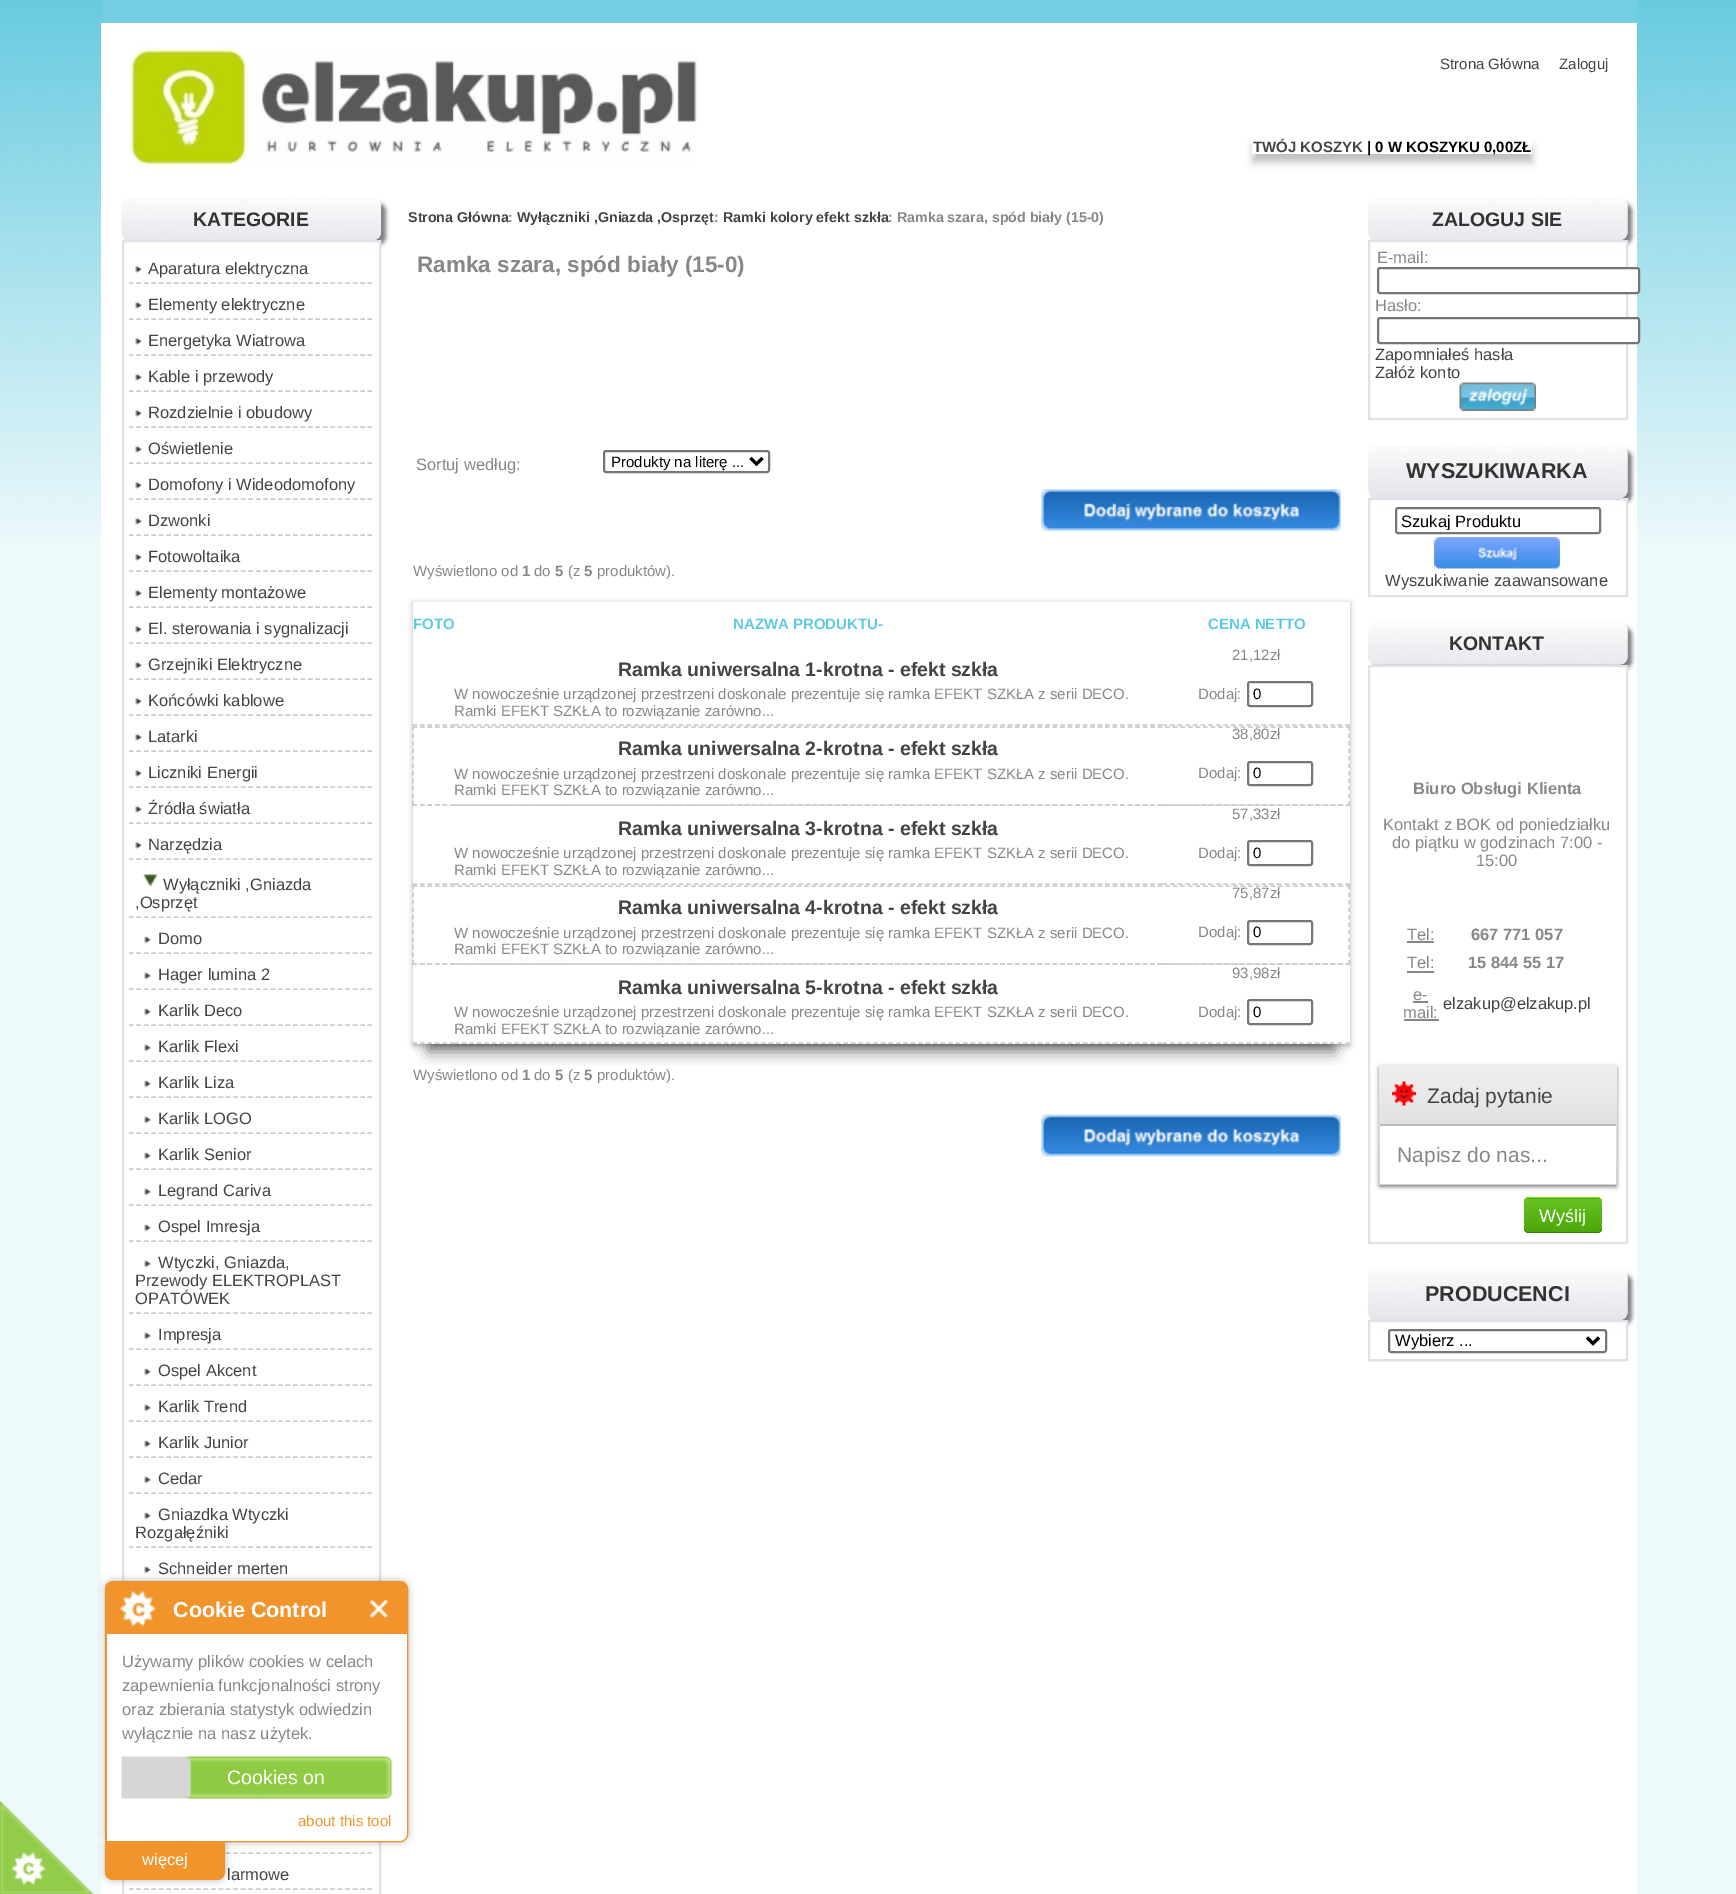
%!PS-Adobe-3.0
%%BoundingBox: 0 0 1736 1894
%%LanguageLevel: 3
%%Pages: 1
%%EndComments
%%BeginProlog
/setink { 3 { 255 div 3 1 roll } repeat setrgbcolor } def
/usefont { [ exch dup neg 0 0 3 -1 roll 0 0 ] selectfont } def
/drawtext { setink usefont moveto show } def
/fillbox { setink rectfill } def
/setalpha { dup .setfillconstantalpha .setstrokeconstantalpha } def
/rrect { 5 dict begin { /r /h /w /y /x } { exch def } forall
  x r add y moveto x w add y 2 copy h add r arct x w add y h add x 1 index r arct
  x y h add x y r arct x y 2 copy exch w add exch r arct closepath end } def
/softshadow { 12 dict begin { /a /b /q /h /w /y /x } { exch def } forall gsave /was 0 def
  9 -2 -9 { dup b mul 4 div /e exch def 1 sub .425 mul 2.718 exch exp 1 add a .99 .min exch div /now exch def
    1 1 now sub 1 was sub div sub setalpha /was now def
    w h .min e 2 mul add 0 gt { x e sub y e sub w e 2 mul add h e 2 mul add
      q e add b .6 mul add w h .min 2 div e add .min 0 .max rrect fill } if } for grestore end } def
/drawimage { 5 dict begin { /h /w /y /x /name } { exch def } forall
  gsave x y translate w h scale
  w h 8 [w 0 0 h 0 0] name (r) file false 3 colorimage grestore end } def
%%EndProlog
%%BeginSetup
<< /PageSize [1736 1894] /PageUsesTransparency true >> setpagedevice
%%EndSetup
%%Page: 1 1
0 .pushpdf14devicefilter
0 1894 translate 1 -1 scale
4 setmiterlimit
0 0 1736 1894 237 249 251 fillbox
(assets/img1.rgb) 0 0 1736 537 drawimage
101 23 1536 1871 255 255 255 fillbox
(assets/img2.rgb) 130 47 567 120 drawimage
101 0 1536 23 115 206 225 fillbox
(Strona Główna) 1440 69 /LiberationSans-Regular 15 68 68 67 drawtext
(Zaloguj) 1559 69 /LiberationSans-Regular 15 68 68 67 drawtext
0 0 0 setink
1253 146 279 16 0 4 0.25 softshadow
255 255 255 setink
1255 138 moveto 1532 138 lineto 1532 154 lineto 1255 154 lineto 1252 154 1252 155 1252 152 curveto 1252 141 lineto 1252 137 1252 138 1255 138 curveto closepath fill
(TWÓJ KOSZYK) 1253 152 /LiberationSans-Bold 15 68 68 67 drawtext
(| 0 W KOSZYKU 0,00ZŁ) 1367 152 /LiberationSans-Bold 15 0 0 0 drawtext
126 203 260 42 8 2 0.5 softshadow
(assets/img3.rgb) 121 198 260 42 drawimage
(KATEGORIE) 193 226 /LiberationSans-Bold 19.5 51 51 51 drawtext
124 242 255 7 255 255 255 fillbox
225 225 233 setink
2 setlinewidth
123 241 257 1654 rectstroke
204 204 204 setink
1.5 setlinewidth
[4.5 2.96] 0 setdash
129 283 moveto 372 283 lineto stroke
(assets/img4.rgb) 135 265 7 8 drawimage
(Aparatura elektryczna) 148 274 /LiberationSans-Regular 16.5 68 68 67 drawtext
204 204 204 setink
129 319 moveto 372 319 lineto stroke
(assets/img4.rgb) 135 301 7 8 drawimage
(Elementy elektryczne) 148 310 /LiberationSans-Regular 16.5 68 68 67 drawtext
204 204 204 setink
129 355 moveto 372 355 lineto stroke
(assets/img4.rgb) 135 337 7 8 drawimage
(Energetyka Wiatrowa) 148 346 /LiberationSans-Regular 16.5 68 68 67 drawtext
204 204 204 setink
129 391 moveto 372 391 lineto stroke
(assets/img4.rgb) 135 373 7 8 drawimage
(Kable i przewody) 148 382 /LiberationSans-Regular 16.5 68 68 67 drawtext
204 204 204 setink
129 427 moveto 372 427 lineto stroke
(assets/img4.rgb) 135 409 7 8 drawimage
(Rozdzielnie i obudowy) 148 418 /LiberationSans-Regular 16.5 68 68 67 drawtext
204 204 204 setink
129 463 moveto 372 463 lineto stroke
(assets/img4.rgb) 135 445 7 8 drawimage
(Oświetlenie) 148 454 /LiberationSans-Regular 16.5 68 68 67 drawtext
204 204 204 setink
129 499 moveto 372 499 lineto stroke
(assets/img4.rgb) 135 481 7 8 drawimage
(Domofony i Wideodomofony) 148 490 /LiberationSans-Regular 16.5 68 68 67 drawtext
204 204 204 setink
129 535 moveto 372 535 lineto stroke
(assets/img4.rgb) 135 517 7 8 drawimage
(Dzwonki) 148 526 /LiberationSans-Regular 16.5 68 68 67 drawtext
204 204 204 setink
129 571 moveto 372 571 lineto stroke
(assets/img4.rgb) 135 553 7 8 drawimage
(Fotowoltaika) 148 562 /LiberationSans-Regular 16.5 68 68 67 drawtext
204 204 204 setink
129 607 moveto 372 607 lineto stroke
(assets/img4.rgb) 135 589 7 8 drawimage
(Elementy montażowe) 148 598 /LiberationSans-Regular 16.5 68 68 67 drawtext
204 204 204 setink
129 643 moveto 372 643 lineto stroke
(assets/img4.rgb) 135 625 7 8 drawimage
(El. sterowania i sygnalizacji) 148 634 /LiberationSans-Regular 16.5 68 68 67 drawtext
204 204 204 setink
129 679 moveto 372 679 lineto stroke
(assets/img4.rgb) 135 661 7 8 drawimage
(Grzejniki Elektryczne) 148 670 /LiberationSans-Regular 16.5 68 68 67 drawtext
204 204 204 setink
129 715 moveto 372 715 lineto stroke
(assets/img4.rgb) 135 697 7 8 drawimage
(Końcówki kablowe) 148 706 /LiberationSans-Regular 16.5 68 68 67 drawtext
204 204 204 setink
129 751 moveto 372 751 lineto stroke
(assets/img4.rgb) 135 733 7 8 drawimage
(Latarki) 148 742 /LiberationSans-Regular 16.5 68 68 67 drawtext
204 204 204 setink
129 787 moveto 372 787 lineto stroke
(assets/img4.rgb) 135 769 7 8 drawimage
(Liczniki Energii) 148 778 /LiberationSans-Regular 16.5 68 68 67 drawtext
204 204 204 setink
129 823 moveto 372 823 lineto stroke
(assets/img4.rgb) 135 805 7 8 drawimage
(Źródła światła) 148 814 /LiberationSans-Regular 16.5 68 68 67 drawtext
204 204 204 setink
129 859 moveto 372 859 lineto stroke
(assets/img4.rgb) 135 841 7 8 drawimage
(Narzędzia) 148 850 /LiberationSans-Regular 16.5 68 68 67 drawtext
204 204 204 setink
129 917 moveto 372 917 lineto stroke
(assets/img5.rgb) 143 874 15 13 drawimage
(Wyłączniki ,Gniazda) 163 890 /LiberationSans-Regular 16.5 68 68 67 drawtext
(,Osprzęt) 135 908 /LiberationSans-Regular 16.5 68 68 67 drawtext
204 204 204 setink
129 953 moveto 372 953 lineto stroke
(assets/img6.rgb) 144 936 7 8 drawimage
(Domo) 158 944 /LiberationSans-Regular 16.5 68 68 67 drawtext
204 204 204 setink
129 989 moveto 372 989 lineto stroke
(assets/img6.rgb) 144 972 7 8 drawimage
(Hager lumina 2) 158 980 /LiberationSans-Regular 16.5 68 68 67 drawtext
204 204 204 setink
129 1025 moveto 372 1025 lineto stroke
(assets/img6.rgb) 144 1008 7 8 drawimage
(Karlik Deco) 158 1016 /LiberationSans-Regular 16.5 68 68 67 drawtext
204 204 204 setink
129 1061 moveto 372 1061 lineto stroke
(assets/img6.rgb) 144 1044 7 8 drawimage
(Karlik Flexi) 158 1052 /LiberationSans-Regular 16.5 68 68 67 drawtext
204 204 204 setink
129 1097 moveto 372 1097 lineto stroke
(assets/img6.rgb) 144 1080 7 8 drawimage
(Karlik Liza) 158 1088 /LiberationSans-Regular 16.5 68 68 67 drawtext
204 204 204 setink
129 1133 moveto 372 1133 lineto stroke
(assets/img6.rgb) 144 1116 7 8 drawimage
(Karlik LOGO) 158 1124 /LiberationSans-Regular 16.5 68 68 67 drawtext
204 204 204 setink
129 1169 moveto 372 1169 lineto stroke
(assets/img6.rgb) 144 1152 7 8 drawimage
(Karlik Senior) 158 1160 /LiberationSans-Regular 16.5 68 68 67 drawtext
204 204 204 setink
129 1205 moveto 372 1205 lineto stroke
(assets/img6.rgb) 144 1188 7 8 drawimage
(Legrand Cariva) 158 1196 /LiberationSans-Regular 16.5 68 68 67 drawtext
204 204 204 setink
129 1241 moveto 372 1241 lineto stroke
(assets/img6.rgb) 144 1224 7 8 drawimage
(Ospel Imresja) 158 1232 /LiberationSans-Regular 16.5 68 68 67 drawtext
204 204 204 setink
129 1313 moveto 372 1313 lineto stroke
(assets/img6.rgb) 144 1260 7 8 drawimage
(Wtyczki, Gniazda,) 158 1268 /LiberationSans-Regular 16.5 68 68 67 drawtext
(Przewody ELEKTROPLAST) 135 1286 /LiberationSans-Regular 16.5 68 68 67 drawtext
(OPATÓWEK) 135 1304 /LiberationSans-Regular 16.5 68 68 67 drawtext
204 204 204 setink
129 1349 moveto 372 1349 lineto stroke
(assets/img6.rgb) 144 1332 7 8 drawimage
(Impresja) 158 1340 /LiberationSans-Regular 16.5 68 68 67 drawtext
204 204 204 setink
129 1385 moveto 372 1385 lineto stroke
(assets/img6.rgb) 144 1368 7 8 drawimage
(Ospel Akcent) 158 1376 /LiberationSans-Regular 16.5 68 68 67 drawtext
204 204 204 setink
129 1421 moveto 372 1421 lineto stroke
(assets/img6.rgb) 144 1404 7 8 drawimage
(Karlik Trend) 158 1412 /LiberationSans-Regular 16.5 68 68 67 drawtext
204 204 204 setink
129 1457 moveto 372 1457 lineto stroke
(assets/img6.rgb) 144 1440 7 8 drawimage
(Karlik Junior) 158 1448 /LiberationSans-Regular 16.5 68 68 67 drawtext
204 204 204 setink
129 1493 moveto 372 1493 lineto stroke
(assets/img6.rgb) 144 1476 7 8 drawimage
(Cedar) 158 1484 /LiberationSans-Regular 16.5 68 68 67 drawtext
204 204 204 setink
129 1547 moveto 372 1547 lineto stroke
(assets/img6.rgb) 144 1512 7 8 drawimage
(Gniazdka Wtyczki) 158 1520 /LiberationSans-Regular 16.5 68 68 67 drawtext
(Rozgałęźniki) 135 1538 /LiberationSans-Regular 16.5 68 68 67 drawtext
(assets/img6.rgb) 144 1566 7 8 drawimage
(Schneider merten) 158 1574 /LiberationSans-Regular 16.5 68 68 67 drawtext
204 204 204 setink
129 1853 moveto 372 1853 lineto stroke
129 1889 moveto 372 1889 lineto stroke
(larmowe) 227 1880 /LiberationSans-Regular 16.5 68 68 67 drawtext
(Strona Główna) 408 222 /LiberationSans-Bold 14.25 68 68 67 drawtext
(:) 508 222 /LiberationSans-Bold 14.25 136 135 135 drawtext
(Wyłączniki ,Gniazda ,Osprzęt) 517 222 /LiberationSans-Bold 14.25 68 68 67 drawtext
(:) 714 222 /LiberationSans-Bold 14.25 136 135 135 drawtext
(Ramki kolory efekt szkła) 723 222 /LiberationSans-Bold 14.25 68 68 67 drawtext
(: Ramka szara, spód biały \(15-0\)) 888 222 /LiberationSans-Bold 14.25 136 135 135 drawtext
(Ramka szara, spód biały \(15-0\)) 417 272 /LiberationSans-Bold 22.5 136 135 135 drawtext
(Sortuj według:) 416 470 /LiberationSans-Regular 16.5 136 135 135 drawtext
118 118 118 setink
2 setlinewidth
[] 0 setdash
604 451 165 21 2 rrect stroke
0 0 0 setink
3 setlinewidth
750.5 458 moveto 756.5 464 lineto 762.5 458 lineto stroke
(Produkty na literę ...) 611 467 /LiberationSans-Regular 15 0 0 0 drawtext
(assets/img7.rgb) 1041 489 300 42 drawimage
(Wyświetlono od) 413 576 /LiberationSans-Regular 15 136 135 135 drawtext
(1) 522 576 /LiberationSans-Bold 15 136 135 135 drawtext
(do) 534 576 /LiberationSans-Regular 15 136 135 135 drawtext
(5) 555 576 /LiberationSans-Bold 15 136 135 135 drawtext
(\(z) 568 576 /LiberationSans-Regular 15 136 135 135 drawtext
(5) 584 576 /LiberationSans-Bold 15 136 135 135 drawtext
(produktów\).) 597 576 /LiberationSans-Regular 15 136 135 135 drawtext
gsave
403 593 moveto 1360 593 lineto 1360 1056 lineto 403 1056 lineto closepath 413 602 moveto 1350 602 lineto 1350 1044 lineto 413 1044 lineto closepath eoclip newpath
0 0 0 setink
413 603 937 443 0 3 0.3 softshadow
grestore
gsave
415 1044 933 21 rectclip
0 0 0 setink
428 639 907 413 0 7.5 0.5 softshadow
grestore
(FOTO) 413 629 /LiberationSans-Bold 15 93 201 226 drawtext
(NAZWA PRODUKTU-) 733 629 /LiberationSans-Bold 15 93 201 226 drawtext
(CENA NETTO) 1208 629 /LiberationSans-Bold 15 93 201 226 drawtext
204 204 204 setink
1.5 setlinewidth
[4.5 3] 0 setdash
412.5 725 moveto 454.5 725 lineto stroke
[4.5 2.98] 0 setdash
454.5 725 moveto 1162.5 725 lineto stroke
(Ramka uniwersalna 1-krotna - efekt szkła) 618 676 /LiberationSans-Bold 19.5 68 68 67 drawtext
(W nowocześnie urządzonej przestrzeni doskonale prezentuje się ramka EFEKT SZKŁA z serii DECO.) 454 699 /LiberationSans-Regular 15 136 135 135 drawtext
(Ramki EFEKT SZKŁA to rozwiązanie zarówno...) 454 716 /LiberationSans-Regular 15 136 135 135 drawtext
204 204 204 setink
[4.5 3.12] 0 setdash
1162.5 725 moveto 1350 725 lineto stroke
(21,12zł) 1232 660 /LiberationSans-Regular 15 136 135 135 drawtext
(Dodaj:) 1198 699 /LiberationSans-Regular 15 136 135 135 drawtext
118 118 118 setink
2 setlinewidth
[] 0 setdash
1248 682 64 24 2 rrect stroke
(0) 1253 699 /LiberationSans-Regular 15 0 0 0 drawtext
204 204 204 setink
1.5 setlinewidth
[4.5 3.03] 0 setdash
412.5 727 moveto 1350 727 lineto stroke
[4.5 3] 0 setdash
1349 726 moveto 1349 805.5 lineto stroke
[4.5 3.03] 0 setdash
412.5 805 moveto 1350 805 lineto stroke
[4.5 3] 0 setdash
413 726 moveto 413 805.5 lineto stroke
412.5 805 moveto 454.5 805 lineto stroke
[4.5 2.98] 0 setdash
454.5 805 moveto 1162.5 805 lineto stroke
(Ramka uniwersalna 2-krotna - efekt szkła) 618 755 /LiberationSans-Bold 19.5 68 68 67 drawtext
(W nowocześnie urządzonej przestrzeni doskonale prezentuje się ramka EFEKT SZKŁA z serii DECO.) 454 779 /LiberationSans-Regular 15 136 135 135 drawtext
(Ramki EFEKT SZKŁA to rozwiązanie zarówno...) 454 795 /LiberationSans-Regular 15 136 135 135 drawtext
204 204 204 setink
[4.5 3.12] 0 setdash
1162.5 805 moveto 1350 805 lineto stroke
(38,80zł) 1232 739 /LiberationSans-Regular 15 136 135 135 drawtext
(Dodaj:) 1198 778 /LiberationSans-Regular 15 136 135 135 drawtext
118 118 118 setink
2 setlinewidth
[] 0 setdash
1248 762 64 23 2 rrect stroke
(0) 1253 778 /LiberationSans-Regular 15 0 0 0 drawtext
204 204 204 setink
1.5 setlinewidth
[4.5 3] 0 setdash
412.5 884 moveto 454.5 884 lineto stroke
[4.5 2.98] 0 setdash
454.5 884 moveto 1162.5 884 lineto stroke
(Ramka uniwersalna 3-krotna - efekt szkła) 618 835 /LiberationSans-Bold 19.5 68 68 67 drawtext
(W nowocześnie urządzonej przestrzeni doskonale prezentuje się ramka EFEKT SZKŁA z serii DECO.) 454 858 /LiberationSans-Regular 15 136 135 135 drawtext
(Ramki EFEKT SZKŁA to rozwiązanie zarówno...) 454 875 /LiberationSans-Regular 15 136 135 135 drawtext
204 204 204 setink
[4.5 3.12] 0 setdash
1162.5 884 moveto 1350 884 lineto stroke
(57,33zł) 1232 819 /LiberationSans-Regular 15 136 135 135 drawtext
(Dodaj:) 1198 858 /LiberationSans-Regular 15 136 135 135 drawtext
118 118 118 setink
2 setlinewidth
[] 0 setdash
1248 841 64 24 2 rrect stroke
(0) 1253 858 /LiberationSans-Regular 15 0 0 0 drawtext
204 204 204 setink
1.5 setlinewidth
[4.5 3.03] 0 setdash
412.5 886 moveto 1350 886 lineto stroke
[4.5 3] 0 setdash
1349 885 moveto 1349 964.5 lineto stroke
[4.5 3.03] 0 setdash
412.5 964 moveto 1350 964 lineto stroke
[4.5 3] 0 setdash
413 885 moveto 413 964.5 lineto stroke
412.5 964 moveto 454.5 964 lineto stroke
[4.5 2.98] 0 setdash
454.5 964 moveto 1162.5 964 lineto stroke
(Ramka uniwersalna 4-krotna - efekt szkła) 618 914 /LiberationSans-Bold 19.5 68 68 67 drawtext
(W nowocześnie urządzonej przestrzeni doskonale prezentuje się ramka EFEKT SZKŁA z serii DECO.) 454 938 /LiberationSans-Regular 15 136 135 135 drawtext
(Ramki EFEKT SZKŁA to rozwiązanie zarówno...) 454 954 /LiberationSans-Regular 15 136 135 135 drawtext
204 204 204 setink
[4.5 3.12] 0 setdash
1162.5 964 moveto 1350 964 lineto stroke
(75,87zł) 1232 898 /LiberationSans-Regular 15 136 135 135 drawtext
(Dodaj:) 1198 937 /LiberationSans-Regular 15 136 135 135 drawtext
118 118 118 setink
2 setlinewidth
[] 0 setdash
1248 921 64 23 2 rrect stroke
(0) 1253 937 /LiberationSans-Regular 15 0 0 0 drawtext
204 204 204 setink
1.5 setlinewidth
[4.5 3] 0 setdash
412.5 1043 moveto 454.5 1043 lineto stroke
[4.5 2.98] 0 setdash
454.5 1043 moveto 1162.5 1043 lineto stroke
(Ramka uniwersalna 5-krotna - efekt szkła) 618 994 /LiberationSans-Bold 19.5 68 68 67 drawtext
(W nowocześnie urządzonej przestrzeni doskonale prezentuje się ramka EFEKT SZKŁA z serii DECO.) 454 1017 /LiberationSans-Regular 15 136 135 135 drawtext
(Ramki EFEKT SZKŁA to rozwiązanie zarówno...) 454 1034 /LiberationSans-Regular 15 136 135 135 drawtext
204 204 204 setink
[4.5 3.12] 0 setdash
1162.5 1043 moveto 1350 1043 lineto stroke
(93,98zł) 1232 978 /LiberationSans-Regular 15 136 135 135 drawtext
(Dodaj:) 1198 1017 /LiberationSans-Regular 15 136 135 135 drawtext
118 118 118 setink
2 setlinewidth
[] 0 setdash
1248 1000 64 24 2 rrect stroke
(0) 1253 1017 /LiberationSans-Regular 15 0 0 0 drawtext
(Wyświetlono od) 413 1080 /LiberationSans-Regular 15 136 135 135 drawtext
(1) 522 1080 /LiberationSans-Bold 15 136 135 135 drawtext
(do) 534 1080 /LiberationSans-Regular 15 136 135 135 drawtext
(5) 555 1080 /LiberationSans-Bold 15 136 135 135 drawtext
(\(z) 568 1080 /LiberationSans-Regular 15 136 135 135 drawtext
(5) 584 1080 /LiberationSans-Bold 15 136 135 135 drawtext
(produktów\).) 597 1080 /LiberationSans-Regular 15 136 135 135 drawtext
(assets/img8.rgb) 1041 1114 300 43 drawimage
0 0 0 setink
1373 203 259 42 8 2 0.5 softshadow
(assets/img9.rgb) 1368 198 260 42 drawimage
(ZALOGUJ SIE) 1432 226 /LiberationSans-Bold 19.5 51 51 51 drawtext
1370 242 256 7 255 255 255 fillbox
225 225 233 setink
1369 241 258 178 rectstroke
(E-mail:) 1377 263 /LiberationSans-Regular 16.5 136 135 135 drawtext
255 255 255 setink
1378 268 261 25 2 rrect gsave fill grestore
118 118 118 setink
stroke
(Hasło:) 1375 311 /LiberationSans-Regular 16.5 136 135 135 drawtext
255 255 255 setink
1378 318 261 25 2 rrect gsave fill grestore
118 118 118 setink
stroke
(Zapomniałeś hasła) 1375 360 /LiberationSans-Regular 16.5 68 68 67 drawtext
(Załóż konto) 1375 378 /LiberationSans-Regular 16.5 68 68 67 drawtext
(assets/img10.rgb) 1459 382 77 29 drawimage
0 0 0 setink
1373 450 259 53 8 2 0.5 softshadow
(assets/img11.rgb) 1368 446 260 52 drawimage
(WYSZUKIWARKA) 1406 478 /LiberationSans-Bold 21.5 51 51 51 drawtext
1370 500 256 7 255 255 255 fillbox
225 225 233 setink
1369 499 258 97 rectstroke
118 118 118 setink
1396 508 204 25 2 rrect stroke
gsave
1401 512 194 18 rectclip
(Szukaj Produktu) 1401 527 /LiberationSans-Regular 16.5 0 0 0 drawtext
grestore
(assets/img12.rgb) 1434 537 126 32 drawimage
(Wyszukiwanie zaawansowane) 1385 586 /LiberationSans-Regular 16.5 68 68 67 drawtext
0 0 0 setink
1373 627 259 42 8 2 0.5 softshadow
(assets/img13.rgb) 1368 623 260 42 drawimage
(KONTAKT) 1449 650 /LiberationSans-Bold 19.5 51 51 51 drawtext
1371 667 255 6 255 255 255 fillbox
225 225 233 setink
1369 666 258 577 rectstroke
(Biuro Obsługi Klienta) 1413 794 /LiberationSans-Bold 16.5 136 135 135 drawtext
(Kontakt z BOK od poniedziałku) 1383 830 /LiberationSans-Regular 16.5 136 135 135 drawtext
(do piątku w godzinach 7:00 -) 1392 848 /LiberationSans-Regular 16.5 136 135 135 drawtext
(15:00) 1476 866 /LiberationSans-Regular 16.5 136 135 135 drawtext
(Tel:) 1407 940 /LiberationSans-Regular 16.5 136 135 135 drawtext
1407 941 27 2 136 135 135 fillbox
(667 771 057) 1471 940 /LiberationSans-Bold 16.5 136 135 135 drawtext
(Tel:) 1407 968 /LiberationSans-Regular 16.5 136 135 135 drawtext
1407 971 27 2 136 135 135 fillbox
(15 844 55 17) 1468 968 /LiberationSans-Bold 16.5 136 135 135 drawtext
(e-) 1413 1000 /LiberationSans-Regular 16.5 136 135 135 drawtext
1413 1001 15 2 136 135 135 fillbox
(mail:) 1403 1018 /LiberationSans-Regular 16.5 136 135 135 drawtext
1404 1019 35 2 136 135 135 fillbox
(elzakup@elzakup.pl) 1443 1009 /LiberationSans-Regular 16.5 68 68 67 drawtext
50 50 50 setink
1379 1067 238 120 1.5 2 0.6 softshadow
gsave 1379 1065 238 120 1.5 rrect clip newpath
<< /ShadingType 2 /ColorSpace /DeviceRGB /Coords [1498 1065 1498 1185] /Extend [true true] /Function << /FunctionType 2 /Domain [0 1] /C0 [0.941 0.941 0.941] /C1 [0.824 0.824 0.824] /N 1 >> >> shfill grestore
(assets/img14.rgb) 1392 1081 24 25 drawimage
(Zadaj pytanie) 1427 1103 /LiberationSans-Regular 21 68 68 67 drawtext
1380 1126 236 58 255 255 255 fillbox
1380 1124 236 2 187 187 187 fillbox
(Napisz do nas...) 1397 1162 /LiberationSans-Regular 21 136 135 135 drawtext
gsave
1524 1197 78 36 5 rrect clip newpath
gsave 1524 1197 moveto 1602 1197 lineto 1602 1199 lineto 1524 1199 lineto closepath clip newpath
<< /ShadingType 2 /ColorSpace /DeviceRGB /Coords [1563 1166 1563 1199] /Extend [true true] /Function << /FunctionType 2 /Domain [0 1] /C0 [0.4 0.765 0.129] /C1 [0.298 0.655 0.039] /N 1 >> >> shfill grestore
gsave 1524 1199 moveto 1602 1199 lineto 1602 1232 lineto 1524 1232 lineto closepath clip newpath
<< /ShadingType 2 /ColorSpace /DeviceRGB /Coords [1563 1199 1563 1232] /Extend [true true] /Function << /FunctionType 2 /Domain [0 1] /C0 [0.4 0.765 0.129] /C1 [0.298 0.655 0.039] /N 1 >> >> shfill grestore
grestore
134 233 35 setink
1528 1197 moveto 1526 1197 1524 1199 1524 1202 curveto 1524 1200 1526 1198 1528 1198 curveto 1598 1198 lineto 1600 1198 1602 1200 1602 1202 curveto 1602 1199 1600 1197 1598 1197 curveto closepath fill
57 123 8 setink
1598 1233 moveto 1600 1233 1602 1231 1602 1228 curveto 1602 1230 1600 1232 1598 1232 curveto 1528 1232 lineto 1526 1232 1524 1230 1524 1228 curveto 1524 1231 1526 1233 1528 1233 curveto closepath fill
(Wyślij) 1539 1222 /LiberationSans-Regular 18 255 255 255 drawtext
0 0 0 setink
1373 1274 259 51 8 2 0.5 softshadow
(assets/img15.rgb) 1368 1269 260 51 drawimage
(PRODUCENCI) 1425 1301 /LiberationSans-Bold 21.5 51 51 51 drawtext
1370 1322 256 7 255 255 255 fillbox
225 225 233 setink
1369 1321 258 39 rectstroke
118 118 118 setink
1389 1330 217 22 2 rrect stroke
0 0 0 setink
3 setlinewidth
1587 1337.5 moveto 1593 1343.5 lineto 1599 1337.5 lineto stroke
(Wybierz ...) 1395 1346 /LiberationSans-Regular 16.5 0 0 0 drawtext
(assets/img16.rgb) 0 1801 93 93 drawimage
105 1581 303 261 8 4 0.3 softshadow
240 148 43 setink
2 setlinewidth
113 1582 moveto 400 1582 lineto 404 1582 407 1585 407 1589 curveto 407 1834 lineto 407 1838 404 1841 400 1841 curveto 106 1841 lineto 106 1589 lineto 106 1585 109 1582 113 1582 curveto closepath stroke
0 0 0 setink
105 1839 120 41 8 4 0.3 softshadow
240 148 43 setink
105 1839 moveto 225 1839 lineto 225 1872 lineto 225 1876.5 221.5 1880 217 1880 curveto 113 1880 lineto 108.5 1880 105 1876.5 105 1872 curveto closepath fill
255 255 255 setink
115 1583 moveto 399 1583 lineto 403.5 1583 407 1586.5 407 1591 curveto 407 1833 lineto 407 1837.5 403.5 1841 399 1841 curveto 107 1841 lineto 107 1591 lineto 107 1586.5 110.5 1583 115 1583 curveto closepath fill
240 148 43 setink
112 1583 moveto 402 1583 lineto 405 1583 407 1585 407 1588 curveto 407 1634 lineto 107 1634 lineto 107 1588 lineto 107 1585 109 1583 112 1583 curveto closepath fill
(assets/img17.rgb) 120 1591 37 36 drawimage
(Cookie Control) 173 1617 /LiberationSans-Bold 21.5 255 255 255 drawtext
(assets/img18.rgb) 370 1599 19 20 drawimage
(Używamy plików cookies w celach) 122 1667 /LiberationSans-Regular 16.5 136 135 135 drawtext
(zapewnienia funkcjonalności strony) 122 1691 /LiberationSans-Regular 16.5 136 135 135 drawtext
(oraz zbierania statystyk odwiedzin) 122 1715 /LiberationSans-Regular 16.5 136 135 135 drawtext
(wyłącznie na nasz użytek.) 122 1739 /LiberationSans-Regular 16.5 136 135 135 drawtext
(assets/img19.rgb) 121 1756 271 43 drawimage
(Cookies on) 227 1784 /LiberationSans-Regular 19.5 255 255 255 drawtext
(about this tool) 298 1826 /LiberationSans-Regular 15 240 148 43 drawtext
(więcej) 142 1865 /LiberationSans-Regular 16.5 255 255 255 drawtext
.poppdf14devicefilter showpage
%%EOF
